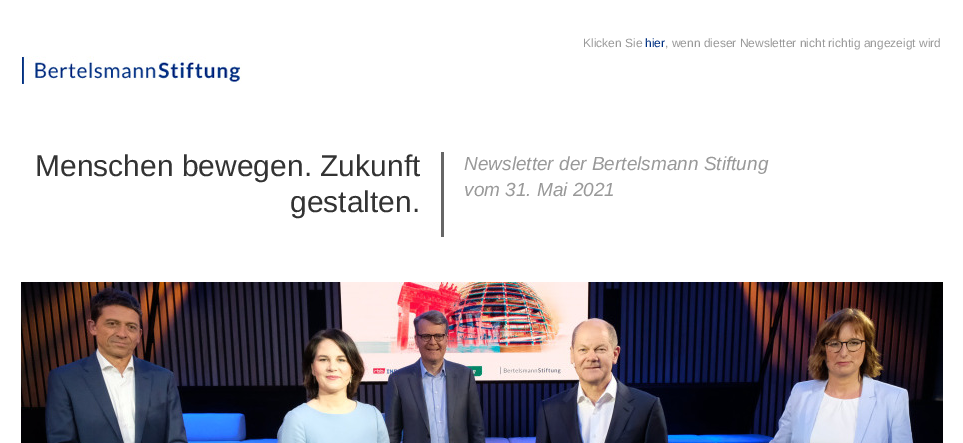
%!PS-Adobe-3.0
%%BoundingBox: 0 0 963 443
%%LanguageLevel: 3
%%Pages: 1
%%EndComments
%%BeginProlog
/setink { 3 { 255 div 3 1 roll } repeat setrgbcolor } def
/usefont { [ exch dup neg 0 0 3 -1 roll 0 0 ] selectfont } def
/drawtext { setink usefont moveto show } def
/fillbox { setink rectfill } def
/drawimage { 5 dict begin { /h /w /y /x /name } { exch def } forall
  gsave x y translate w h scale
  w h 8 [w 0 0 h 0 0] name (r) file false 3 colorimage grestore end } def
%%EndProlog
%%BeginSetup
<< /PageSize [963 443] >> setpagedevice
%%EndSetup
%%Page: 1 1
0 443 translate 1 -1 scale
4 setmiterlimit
0 0 963 443 255 255 255 fillbox
(Klicken Sie) 583 47 /LiberationSans-Regular 12 153 153 153 drawtext
(hier) 645 47 /LiberationSans-Regular 12 0 48 130 drawtext
(, wenn dieser Newsletter nicht richtig angezeigt wird) 665 47 /LiberationSans-Regular 12 153 153 153 drawtext
(assets/img1.rgb) 22 56 220 28 drawimage
441 152 3 85 102 102 102 fillbox
(Menschen bewegen. Zukunft) 35 176 /LiberationSans-Regular 30 51 51 51 drawtext
(gestalten.) 290 212 /LiberationSans-Regular 30 51 51 51 drawtext
(Newsletter der Bertelsmann Stiftung) 464 170 /LiberationSans-Italic 19 153 153 153 drawtext
(vom 31. Mai 2021) 464 196 /LiberationSans-Italic 19 153 153 153 drawtext
(assets/img2.rgb) 21 282 74 161 drawimage
(assets/img3.rgb) 95 282 774 161 drawimage
(assets/img4.rgb) 869 282 74 161 drawimage
showpage
%%EOF
